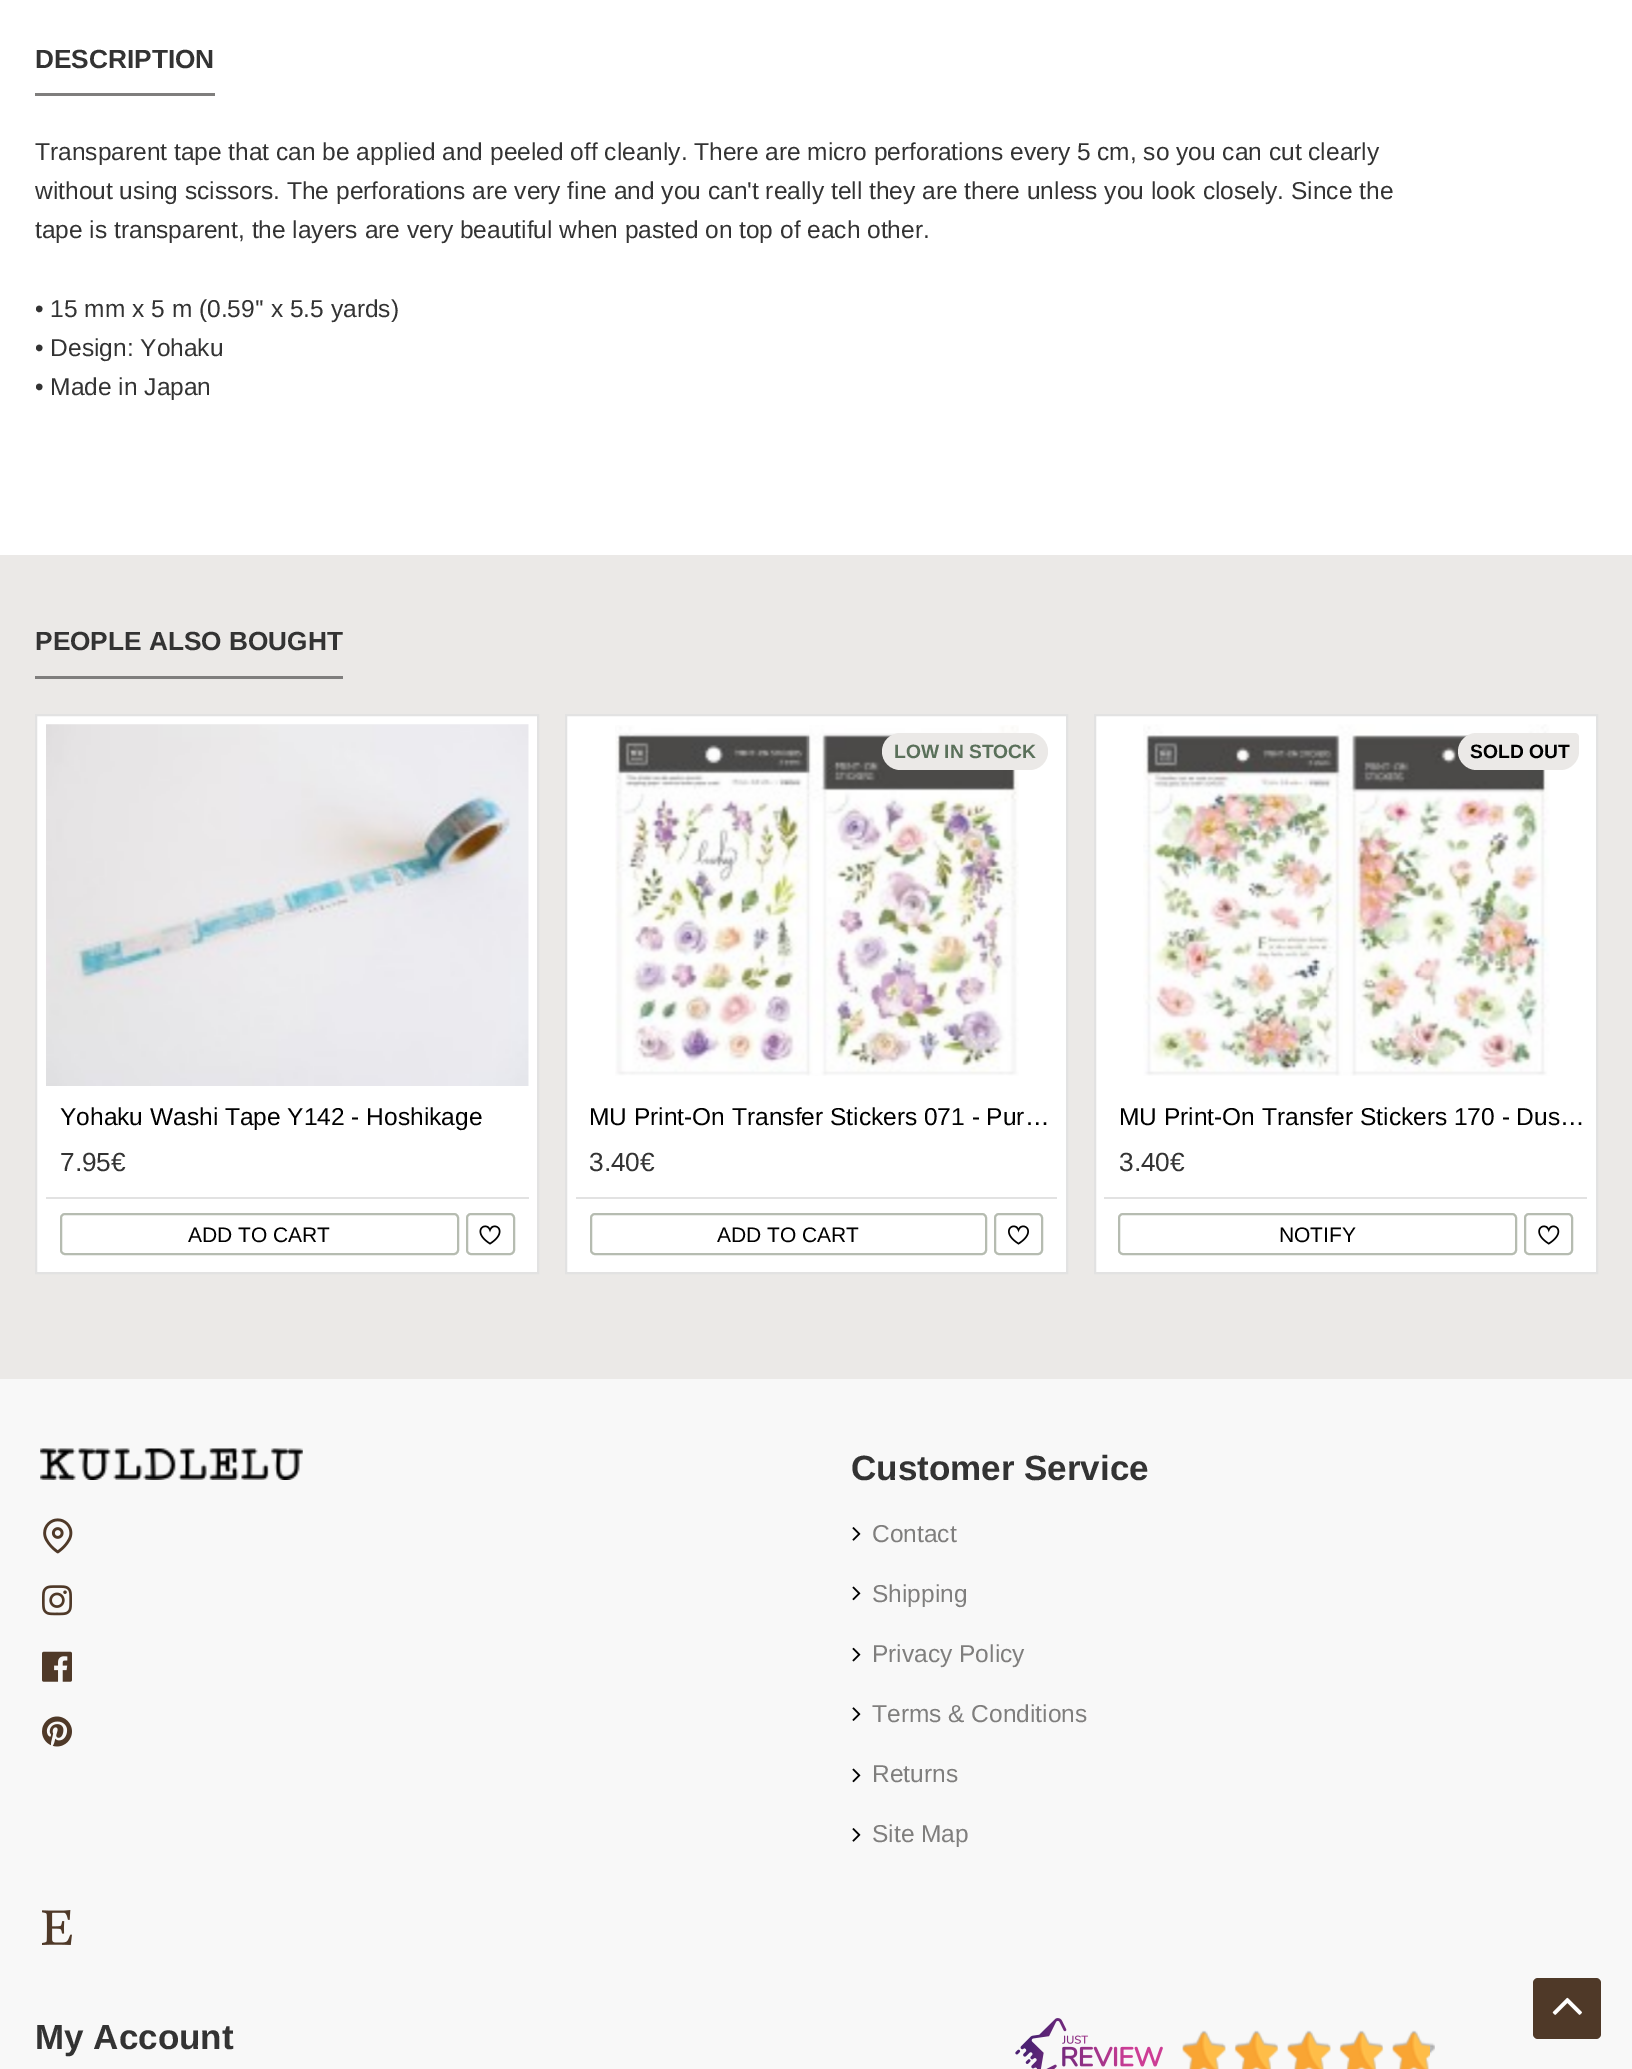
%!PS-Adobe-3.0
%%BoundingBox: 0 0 1632 2069
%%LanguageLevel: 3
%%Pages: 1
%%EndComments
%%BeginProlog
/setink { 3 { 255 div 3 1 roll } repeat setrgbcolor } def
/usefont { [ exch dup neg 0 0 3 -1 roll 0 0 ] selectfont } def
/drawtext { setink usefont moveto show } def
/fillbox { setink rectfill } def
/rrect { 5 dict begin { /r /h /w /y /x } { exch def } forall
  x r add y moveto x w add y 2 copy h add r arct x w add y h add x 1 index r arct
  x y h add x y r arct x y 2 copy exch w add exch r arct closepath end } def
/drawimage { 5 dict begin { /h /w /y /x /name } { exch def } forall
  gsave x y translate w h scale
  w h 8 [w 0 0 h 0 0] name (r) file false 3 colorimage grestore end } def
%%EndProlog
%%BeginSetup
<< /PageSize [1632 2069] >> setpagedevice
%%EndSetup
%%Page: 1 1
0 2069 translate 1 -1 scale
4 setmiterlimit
0 0 1632 2069 255 255 255 fillbox
35 93 180 3 127 126 125 fillbox
(DESCRIPTION) 35 68 /LiberationSans-Bold 26.25 51 51 51 drawtext
(Transparent tape that can be applied and peeled off cleanly. There are micro perforations every 5 cm, so you can cut clearly) 35 160 /LiberationSans-Regular 24.5 51 51 51 drawtext
(without using scissors. The perforations are very fine and you can't really tell they are there unless you look closely. Since the) 35 199 /LiberationSans-Regular 24.5 51 51 51 drawtext
(tape is transparent, the layers are very beautiful when pasted on top of each other.) 35 238 /LiberationSans-Regular 24.5 51 51 51 drawtext
(• 15 mm x 5 m \(0.59'' x 5.5 yards\)) 35 317 /LiberationSans-Regular 24.5 51 51 51 drawtext
(• Design: Yohaku) 35 356 /LiberationSans-Regular 24.5 51 51 51 drawtext
(• Made in Japan) 35 395 /LiberationSans-Regular 24.5 51 51 51 drawtext
0 555 1632 824 235 233 231 fillbox
35 676 308 3 127 126 125 fillbox
(PEOPLE ALSO BOUGHT) 35 650 /LiberationSans-Bold 26.25 51 51 51 drawtext
255 255 255 setink
36 715 moveto 538 715 lineto 538 1273 lineto 36 1273 lineto closepath gsave fill grestore
226 226 226 setink
2 setlinewidth
stroke
(assets/img1.rgb) 46 724 483 362 drawimage
(Yohaku Washi Tape Y142 - Hoshikage) 60 1125 /LiberationSans-Regular 24.5 0 0 0 drawtext
(7.95€) 60 1171 /LiberationSans-Regular 26.25 51 51 51 drawtext
46 1197 483 2 226 226 226 fillbox
182 188 177 setink
61 1214 397 40 4 rrect stroke
(ADD TO CART) 188 1242 /LiberationSans-Regular 21 0 0 0 drawtext
182 188 177 setink
467 1214 47 40 4 rrect stroke
(assets/img2.rgb) 479 1225 22 20 drawimage
255 255 255 setink
566 715 moveto 1067 715 lineto 1067 1273 lineto 566 1273 lineto closepath gsave fill grestore
226 226 226 setink
stroke
(assets/img3.rgb) 615 725 404 351 drawimage
235 233 231 setink
882 733 166 37 18.5 rrect fill
(LOW IN STOCK) 894 758 /LiberationSans-Bold 19.25 90 112 90 drawtext
(MU Print-On Transfer Stickers 071 - Pur…) 589 1125 /LiberationSans-Regular 24.5 0 0 0 drawtext
(3.40€) 589 1171 /LiberationSans-Regular 26.25 51 51 51 drawtext
576 1197 481 2 226 226 226 fillbox
182 188 177 setink
591 1214 395 40 4 rrect stroke
(ADD TO CART) 717 1242 /LiberationSans-Regular 21 0 0 0 drawtext
182 188 177 setink
995 1214 47 40 4 rrect stroke
(assets/img4.rgb) 1008 1225 21 20 drawimage
255 255 255 setink
1095 715 moveto 1597 715 lineto 1597 1273 lineto 1095 1273 lineto closepath gsave fill grestore
226 226 226 setink
stroke
(assets/img5.rgb) 1143 724 407 352 drawimage
235 233 231 setink
1476.5 733 moveto 1575 733 lineto 1577 733 1579 735 1579 737 curveto 1579 751.5 lineto 1579 761.5 1570.5 770 1560.5 770 curveto 1476.5 770 lineto 1466.5 770 1458 761.5 1458 751.5 curveto 1458 741.5 1466.5 733 1476.5 733 curveto closepath fill
(SOLD OUT) 1470 758 /LiberationSans-Bold 19.25 0 0 0 drawtext
(MU Print-On Transfer Stickers 170 - Dus…) 1119 1125 /LiberationSans-Regular 24.5 0 0 0 drawtext
(3.40€) 1119 1171 /LiberationSans-Regular 26.25 51 51 51 drawtext
1104 1197 483 2 226 226 226 fillbox
182 188 177 setink
1119 1214 397 40 4 rrect stroke
(NOTIFY) 1279 1242 /LiberationSans-Regular 21 0 0 0 drawtext
182 188 177 setink
1525 1214 47 40 4 rrect stroke
(assets/img6.rgb) 1538 1225 22 20 drawimage
0 1379 1632 690 248 248 248 fillbox
(assets/img7.rgb) 40 1448 263 32 drawimage
(assets/img8.rgb) 43 1518 30 36 drawimage
(assets/img9.rgb) 42 1585 30 31 drawimage
(assets/img10.rgb) 42 1651 30 31 drawimage
(assets/img11.rgb) 42 1716 30 31 drawimage
(assets/img12.rgb) 42 1910 30 35 drawimage
(Customer Service) 851 1480 /LiberationSans-Bold 35 51 51 51 drawtext
(assets/img13.rgb) 852 1527 9 14 drawimage
(Contact) 872 1542 /LiberationSans-Regular 24.5 127 126 125 drawtext
(assets/img14.rgb) 852 1586 9 15 drawimage
(Shipping) 872 1602 /LiberationSans-Regular 24.5 127 126 125 drawtext
(assets/img15.rgb) 852 1647 9 15 drawimage
(Privacy Policy) 872 1662 /LiberationSans-Regular 24.5 127 126 125 drawtext
(assets/img16.rgb) 852 1707 9 14 drawimage
(Terms & Conditions) 872 1722 /LiberationSans-Regular 24.5 127 126 125 drawtext
(assets/img14.rgb) 852 1768 9 15 drawimage
(Returns) 872 1782 /LiberationSans-Regular 24.5 127 126 125 drawtext
(assets/img13.rgb) 852 1828 9 14 drawimage
(Site Map) 872 1842 /LiberationSans-Regular 24.5 127 126 125 drawtext
(My Account) 35 2049 /LiberationSans-Bold 35 51 51 51 drawtext
(assets/img17.rgb) 1015 2018 148 51 drawimage
(assets/img18.rgb) 1182 2030 253 39 drawimage
(assets/img19.rgb) 1182 2032 248 37 drawimage
79 57 40 setink
1533 1978 68 61 5 rrect fill
(assets/img20.rgb) 1552 1997 30 18 drawimage
showpage
%%EOF
